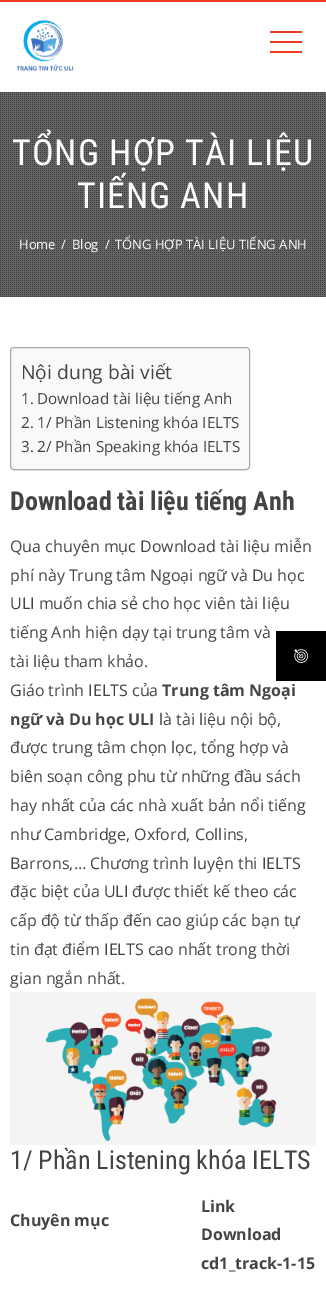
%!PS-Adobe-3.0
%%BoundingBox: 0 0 326 1315
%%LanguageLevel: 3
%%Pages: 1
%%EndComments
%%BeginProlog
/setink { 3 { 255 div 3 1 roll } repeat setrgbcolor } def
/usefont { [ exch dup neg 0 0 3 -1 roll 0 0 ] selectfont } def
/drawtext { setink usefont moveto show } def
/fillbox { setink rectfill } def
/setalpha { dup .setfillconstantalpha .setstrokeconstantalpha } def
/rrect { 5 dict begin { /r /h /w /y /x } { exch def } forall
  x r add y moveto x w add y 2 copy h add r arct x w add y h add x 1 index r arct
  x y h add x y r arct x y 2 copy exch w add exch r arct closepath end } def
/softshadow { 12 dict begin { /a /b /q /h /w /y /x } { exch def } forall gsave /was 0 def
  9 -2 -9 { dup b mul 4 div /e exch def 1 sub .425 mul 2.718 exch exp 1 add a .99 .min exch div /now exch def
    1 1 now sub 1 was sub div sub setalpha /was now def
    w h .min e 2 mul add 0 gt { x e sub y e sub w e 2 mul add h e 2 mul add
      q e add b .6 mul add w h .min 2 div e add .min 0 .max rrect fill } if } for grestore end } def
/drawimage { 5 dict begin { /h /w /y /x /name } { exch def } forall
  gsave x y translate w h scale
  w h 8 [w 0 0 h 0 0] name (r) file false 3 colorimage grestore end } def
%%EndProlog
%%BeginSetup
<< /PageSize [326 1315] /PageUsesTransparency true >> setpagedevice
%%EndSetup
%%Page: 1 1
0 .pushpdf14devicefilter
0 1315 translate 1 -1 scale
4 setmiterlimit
0 0 326 1315 255 255 255 fillbox
0 0 326 2 238 59 36 fillbox
(assets/img1.rgb) 16 20 58 51 drawimage
270 31 32 2 238 59 36 fillbox
270 51 32 2 238 59 36 fillbox
270 41 32 2 238 59 36 fillbox
(assets/img2.rgb) 0 92 326 205 drawimage
/RobotoCondensed-Regular 36 usefont
255 255 255 setink
12 165 moveto 1 0 (TỔNG HỢP TÀI LIỆU) ashow
77 208 moveto 1 0 (TIẾNG ANH) ashow
(Home) 19 249 /OpenSans-Regular 13 255 255 255 drawtext
(/) 61 249 /OpenSans-Regular 13 255 255 255 drawtext
(Blog) 72 249 /OpenSans-Regular 13 255 255 255 drawtext
(/) 105 249 /OpenSans-Regular 13 255 255 255 drawtext
(TỔNG HỢP TÀI LIỆU TIẾNG ANH) 115 249 /OpenSans-Regular 13 255 255 255 drawtext
0 0 0 setink
10 348 240 123 4 0.5 0.05 softshadow
249 249 249 setink
10.5 347.5 239 122 3.5 rrect gsave fill grestore
170 170 170 setink
stroke
(Nội dung bài viết) 21 379 /OpenSans-Regular 19.25 68 68 68 drawtext
(1.) 21 404 /OpenSans-Regular 15.25 68 68 68 drawtext
(Download tài liệu tiếng Anh) 37 404 /OpenSans-Regular 15.25 68 68 68 drawtext
(2.) 21 428 /OpenSans-Regular 15.25 68 68 68 drawtext
(1/ Phần Listening khóa IELTS) 37 428 /OpenSans-Regular 15.25 68 68 68 drawtext
(3.) 21 452 /OpenSans-Regular 15.25 68 68 68 drawtext
(2/ Phần Speaking khóa IELTS) 37 452 /OpenSans-Regular 15.25 68 68 68 drawtext
(Download tài liệu tiếng Anh) 10 510 /RobotoCondensed-Bold 26 68 68 68 drawtext
(Qua chuyên mục Download tài liệu miễn) 10 552 /OpenSans-Regular 16 68 68 68 drawtext
(phí này Trung tâm Ngoại ngữ và Du học) 10 581 /OpenSans-Regular 16 68 68 68 drawtext
(ULI muốn chia sẻ cho học viên tài liệu) 10 609 /OpenSans-Regular 16 68 68 68 drawtext
(tiếng Anh hiện dạy tại trung tâm và) 10 638 /OpenSans-Regular 16 68 68 68 drawtext
(tài liệu tham khảo.) 10 667 /OpenSans-Regular 16 68 68 68 drawtext
(Giáo trình IELTS của) 10 696 /OpenSans-Regular 16 68 68 68 drawtext
(Trung tâm Ngoại) 162 696 /OpenSans-Bold 16 68 68 68 drawtext
(ngữ và Du học ULI) 10 725 /OpenSans-Bold 16 68 68 68 drawtext
(là tài liệu nội bộ,) 159 725 /OpenSans-Regular 16 68 68 68 drawtext
(được trung tâm chọn lọc, tổng hợp và) 10 753 /OpenSans-Regular 16 68 68 68 drawtext
(biên soạn công phu từ những đầu sách) 10 782 /OpenSans-Regular 16 68 68 68 drawtext
(hay nhất của các nhà xuất bản nổi tiếng) 10 811 /OpenSans-Regular 16 68 68 68 drawtext
(như Cambridge, Oxford, Collins,) 10 840 /OpenSans-Regular 16 68 68 68 drawtext
(Barrons,… Chương trình luyện thi IELTS) 10 869 /OpenSans-Regular 16 68 68 68 drawtext
(đặc biệt của ULI được thiết kế theo các) 10 897 /OpenSans-Regular 16 68 68 68 drawtext
(cấp độ từ thấp đến cao giúp các bạn tự) 10 926 /OpenSans-Regular 16 68 68 68 drawtext
(tin đạt điểm IELTS cao nhất trong thời) 10 955 /OpenSans-Regular 16 68 68 68 drawtext
(gian ngắn nhất.) 10 984 /OpenSans-Regular 16 68 68 68 drawtext
(assets/img3.rgb) 10 992 306 153 drawimage
(1/ Phần Listening khóa IELTS) 10 1169 /RobotoCondensed-Regular 26 68 68 68 drawtext
(Chuyên mục) 10 1226 /OpenSans-Bold 16 68 68 68 drawtext
(Link) 201 1212 /OpenSans-Bold 16 68 68 68 drawtext
(Download) 201 1240 /OpenSans-Bold 16 68 68 68 drawtext
(cd1_track-1-15) 201 1269 /OpenSans-Bold 16 68 68 68 drawtext
276 631 50 50 0 0 0 fillbox
(assets/img4.rgb) 294 649 14 14 drawimage
.poppdf14devicefilter showpage
%%EOF
